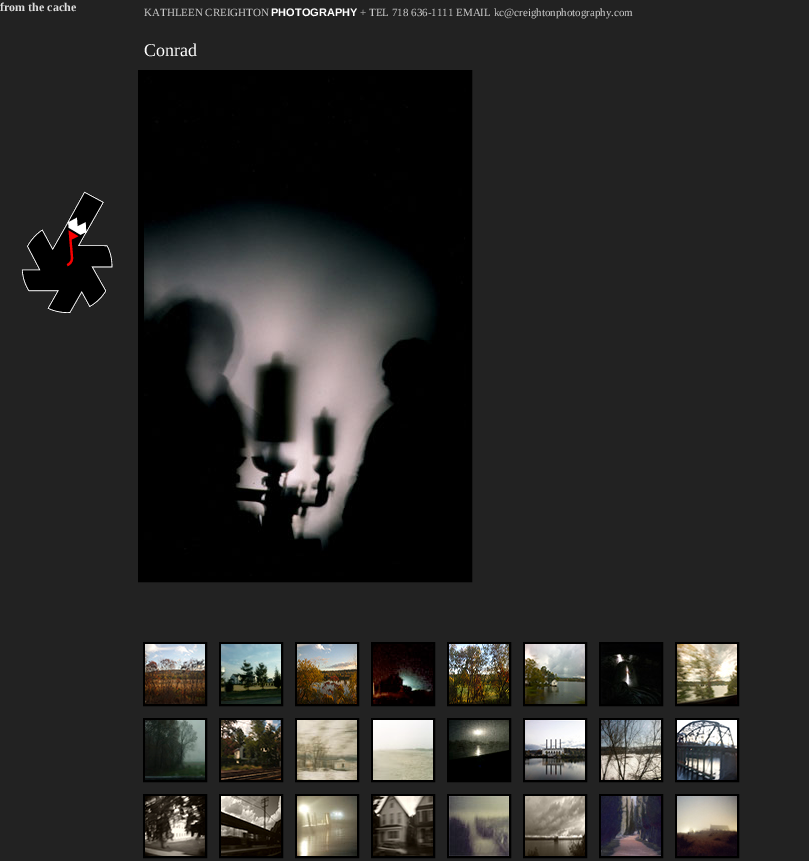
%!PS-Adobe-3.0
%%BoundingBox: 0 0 809 861
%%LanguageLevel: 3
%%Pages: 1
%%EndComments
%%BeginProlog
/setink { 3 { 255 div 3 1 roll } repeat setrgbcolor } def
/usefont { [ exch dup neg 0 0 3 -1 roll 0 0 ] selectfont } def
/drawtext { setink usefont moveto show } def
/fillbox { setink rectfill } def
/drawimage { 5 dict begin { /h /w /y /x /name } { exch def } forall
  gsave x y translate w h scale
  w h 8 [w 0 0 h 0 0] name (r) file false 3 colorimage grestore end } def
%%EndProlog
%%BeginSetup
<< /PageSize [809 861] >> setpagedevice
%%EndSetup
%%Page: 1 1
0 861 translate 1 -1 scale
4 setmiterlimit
0 0 809 861 34 34 34 fillbox
(from the cache) 0 11 /LiberationSerif-Bold 12 221 221 221 drawtext
(KATHLEEN CREIGHTON) 144 16 /LiberationSerif-Regular 11 204 204 204 drawtext
(PHOTOGRAPHY) 271 16 /LiberationSans-Bold 11 255 255 255 drawtext
(+ TEL 718 636-1111 EMAIL kc@creightonphotography.com) 360 16 /LiberationSerif-Regular 11 204 204 204 drawtext
(Conrad) 144 56 /LiberationSerif-Regular 18 255 255 255 drawtext
0 0 0 setink
6 setlinewidth
141 73 328 506 rectstroke
(assets/img1.rgb) 144 76 322 500 drawimage
2 setlinewidth
144 643 62 62 rectstroke
220 643 62 62 rectstroke
296 643 62 62 rectstroke
372 643 62 62 rectstroke
448 643 62 62 rectstroke
524 643 62 62 rectstroke
600 643 62 62 rectstroke
676 643 62 62 rectstroke
(assets/img2.rgb) 145 644 60 60 drawimage
(assets/img3.rgb) 221 644 60 60 drawimage
(assets/img4.rgb) 297 644 60 60 drawimage
(assets/img5.rgb) 373 644 60 60 drawimage
(assets/img6.rgb) 449 644 60 60 drawimage
(assets/img7.rgb) 525 644 60 60 drawimage
(assets/img8.rgb) 601 644 60 60 drawimage
(assets/img9.rgb) 677 644 60 60 drawimage
144 719 62 62 rectstroke
220 719 62 62 rectstroke
296 719 62 62 rectstroke
372 719 62 62 rectstroke
448 719 62 62 rectstroke
524 719 62 62 rectstroke
600 719 62 62 rectstroke
676 719 62 62 rectstroke
(assets/img10.rgb) 145 720 60 60 drawimage
(assets/img11.rgb) 221 720 60 60 drawimage
(assets/img12.rgb) 297 720 60 60 drawimage
(assets/img13.rgb) 373 720 60 60 drawimage
(assets/img14.rgb) 449 720 60 60 drawimage
(assets/img15.rgb) 525 720 60 60 drawimage
(assets/img16.rgb) 601 720 60 60 drawimage
(assets/img17.rgb) 677 720 60 60 drawimage
144 795 62 62 rectstroke
220 795 62 62 rectstroke
296 795 62 62 rectstroke
372 795 62 62 rectstroke
448 795 62 62 rectstroke
524 795 62 62 rectstroke
600 795 62 62 rectstroke
676 795 62 62 rectstroke
(assets/img18.rgb) 145 796 60 60 drawimage
(assets/img19.rgb) 221 796 60 60 drawimage
(assets/img20.rgb) 297 796 60 60 drawimage
(assets/img21.rgb) 373 796 60 60 drawimage
(assets/img22.rgb) 449 796 60 60 drawimage
(assets/img23.rgb) 525 796 60 60 drawimage
(assets/img24.rgb) 601 796 60 60 drawimage
(assets/img25.rgb) 677 796 60 60 drawimage
(assets/img26.rgb) 21 191 92 122 drawimage
showpage
%%EOF
